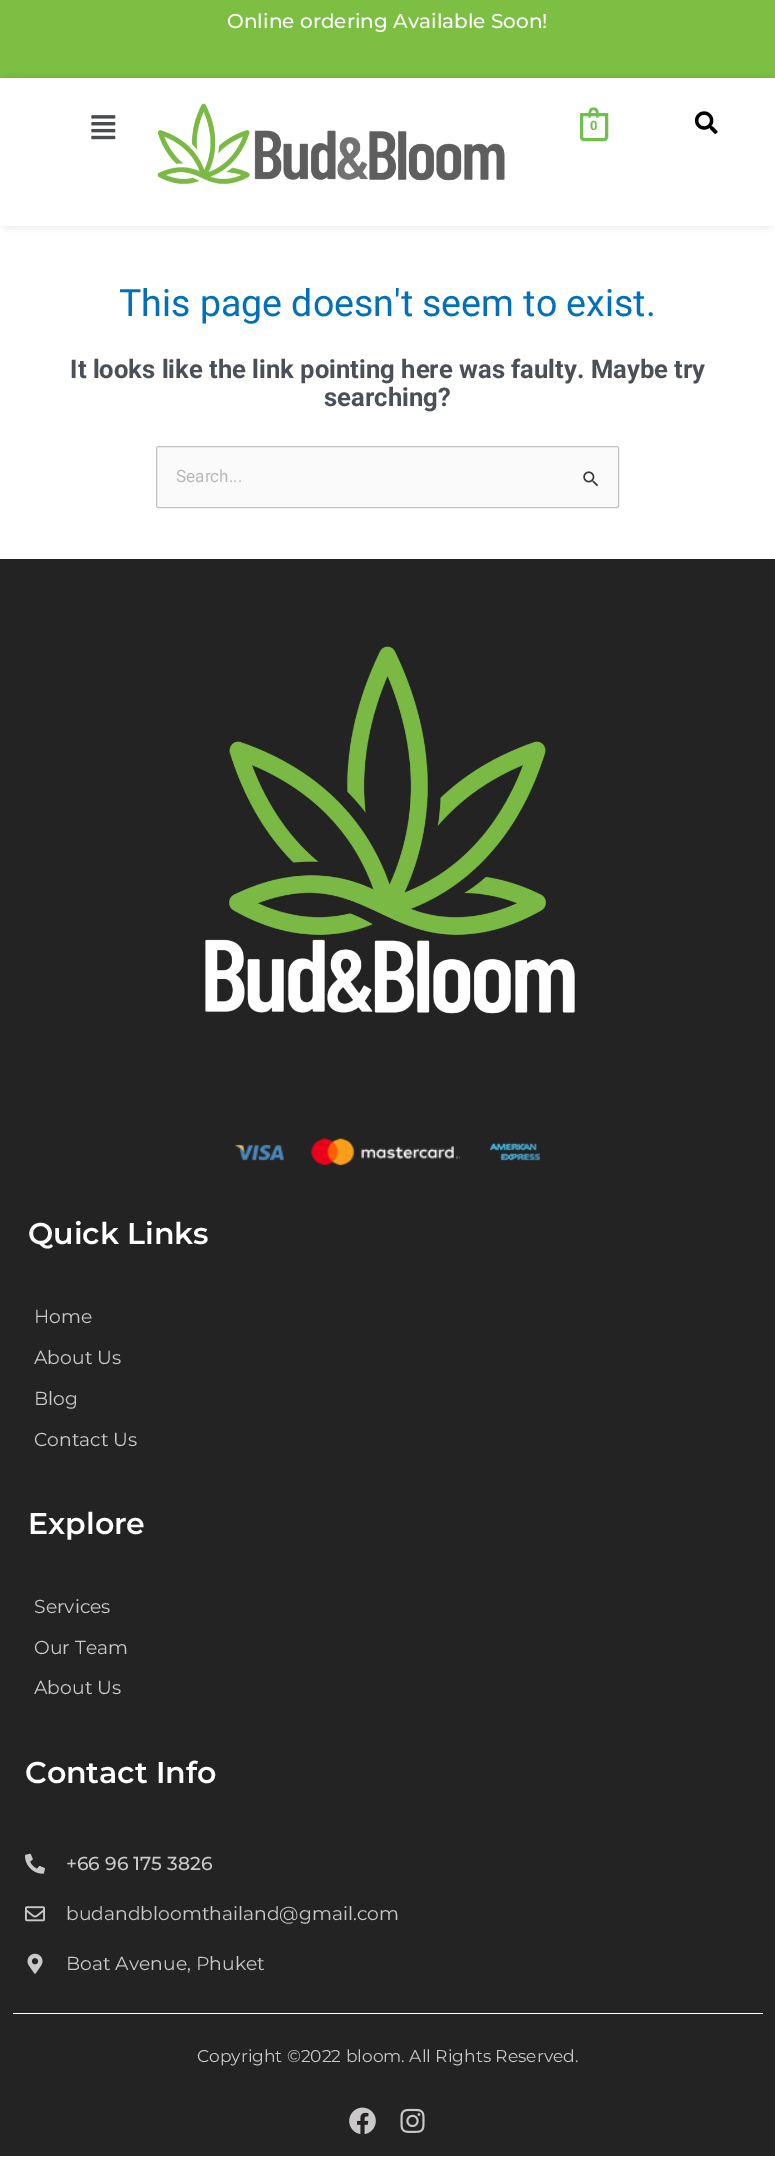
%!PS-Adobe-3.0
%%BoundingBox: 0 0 775 2159
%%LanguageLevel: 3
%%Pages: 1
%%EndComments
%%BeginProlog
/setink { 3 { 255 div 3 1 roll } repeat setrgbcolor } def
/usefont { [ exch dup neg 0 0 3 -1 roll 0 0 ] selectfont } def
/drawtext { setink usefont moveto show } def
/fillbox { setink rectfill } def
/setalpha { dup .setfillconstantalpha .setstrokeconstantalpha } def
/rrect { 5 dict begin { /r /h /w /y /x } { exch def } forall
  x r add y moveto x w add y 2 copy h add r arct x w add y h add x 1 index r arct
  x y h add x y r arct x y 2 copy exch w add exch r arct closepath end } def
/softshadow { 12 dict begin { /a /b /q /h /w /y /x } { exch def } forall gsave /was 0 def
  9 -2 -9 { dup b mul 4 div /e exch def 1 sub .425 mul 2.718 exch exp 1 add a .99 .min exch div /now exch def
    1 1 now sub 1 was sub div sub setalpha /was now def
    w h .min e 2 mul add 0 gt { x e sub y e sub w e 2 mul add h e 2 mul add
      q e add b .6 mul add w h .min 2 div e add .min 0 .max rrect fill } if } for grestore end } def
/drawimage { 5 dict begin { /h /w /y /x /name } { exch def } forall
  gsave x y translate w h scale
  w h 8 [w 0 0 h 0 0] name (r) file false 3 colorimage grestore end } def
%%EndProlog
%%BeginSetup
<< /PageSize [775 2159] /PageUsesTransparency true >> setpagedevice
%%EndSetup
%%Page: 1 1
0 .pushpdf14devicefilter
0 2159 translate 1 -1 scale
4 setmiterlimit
0 0 775 2159 255 255 255 fillbox
0 0 775 78 125 191 66 fillbox
(Online ordering Available Soon!) 227 28 /Montserrat-Medium 20 255 255 255 drawtext
gsave
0 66 moveto 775 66 lineto 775 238 lineto 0 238 lineto closepath 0 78 moveto 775 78 lineto 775 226 lineto 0 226 lineto closepath eoclip newpath
0 0 0 setink
8 85 760 134 0 6 0.5 softshadow
grestore
(assets/img1.rgb) 91 115 25 25 drawimage
(assets/img2.rgb) 157 103 348 81 drawimage
112 191 79 setink
3 setlinewidth
581.5 114.5 moveto 606.5 114.5 lineto 606.5 137 lineto 606.5 138.5 605.5 139.5 604 139.5 curveto 584 139.5 lineto 582.5 139.5 581.5 138.5 581.5 137 curveto closepath stroke
593.5 107.5 moveto 599.5 107.5 598.5 113.5 598.5 117.5 curveto 588.5 117.5 lineto 588.5 113.5 588 107.5 593.5 107.5 curveto closepath 593.5 110 moveto 597 110 596 115.5 596 117.5 curveto 591 117.5 lineto 591 115.5 590 110 593.5 110 curveto closepath eofill
(0) 590 130 /Roboto-Bold 13 112 191 79 drawtext
(assets/img3.rgb) 694 111 24 23 drawimage
(This page doesn't seem to exist.) 119 316 /Roboto-Regular 37.5 1 112 185 drawtext
(It looks like the link pointing here was faulty. Maybe try) 70 378 /Roboto-Bold 25.65 75 79 88 drawtext
(searching?) 324 406 /Roboto-Bold 25.65 75 79 88 drawtext
250 250 250 setink
156.5 446.5 462 61 2 rrect gsave fill grestore
194 194 194 setink
1 setlinewidth
stroke
(Search...) 176 482 /Roboto-Regular 17.1 184 184 184 drawtext
(assets/img4.rgb) 583 471 15 16 drawimage
0 559 775 1597 35 35 35 fillbox
(assets/img5.rgb) 205 646 370 368 drawimage
(assets/img6.rgb) 235 1138 305 27 drawimage
(Quick Links) 28 1244 /Montserrat-SemiBold 30 255 255 255 drawtext
(Home) 34 1323 /Montserrat-Regular 18.75 202 200 200 drawtext
(About Us) 34 1364 /Montserrat-Regular 18.75 202 200 200 drawtext
(Blog) 34 1405 /Montserrat-Regular 18.75 202 200 200 drawtext
(Contact Us) 34 1446 /Montserrat-Regular 18.75 202 200 200 drawtext
(Explore) 28 1534 /Montserrat-SemiBold 30 255 255 255 drawtext
(Services) 34 1613 /Montserrat-Regular 18.75 202 200 200 drawtext
(Our Team) 34 1654 /Montserrat-Regular 18.75 202 200 200 drawtext
(About Us) 34 1694 /Montserrat-Regular 18.75 202 200 200 drawtext
(Contact Info) 25 1783 /Montserrat-SemiBold 30 255 255 255 drawtext
(assets/img7.rgb) 25 1853 20 21 drawimage
(+66 96 175 3826) 66 1870 /Montserrat-Medium 18.75 202 200 200 drawtext
(assets/img8.rgb) 25 1906 20 16 drawimage
(budandbloomthailand@gmail.com) 66 1920 /Montserrat-Regular 18.75 202 200 200 drawtext
(assets/img9.rgb) 27 1953 16 21 drawimage
(Boat Avenue, Phuket) 66 1970 /Montserrat-Regular 18.75 202 200 200 drawtext
13 2013 750 1 255 255 255 fillbox
(Copyright ©2022 bloom. All Rights Reserved.) 197 2062 /Montserrat-Regular 17.1 202 200 200 drawtext
(assets/img10.rgb) 349 2107 27 27 drawimage
(assets/img11.rgb) 400 2108 25 25 drawimage
.poppdf14devicefilter showpage
%%EOF
